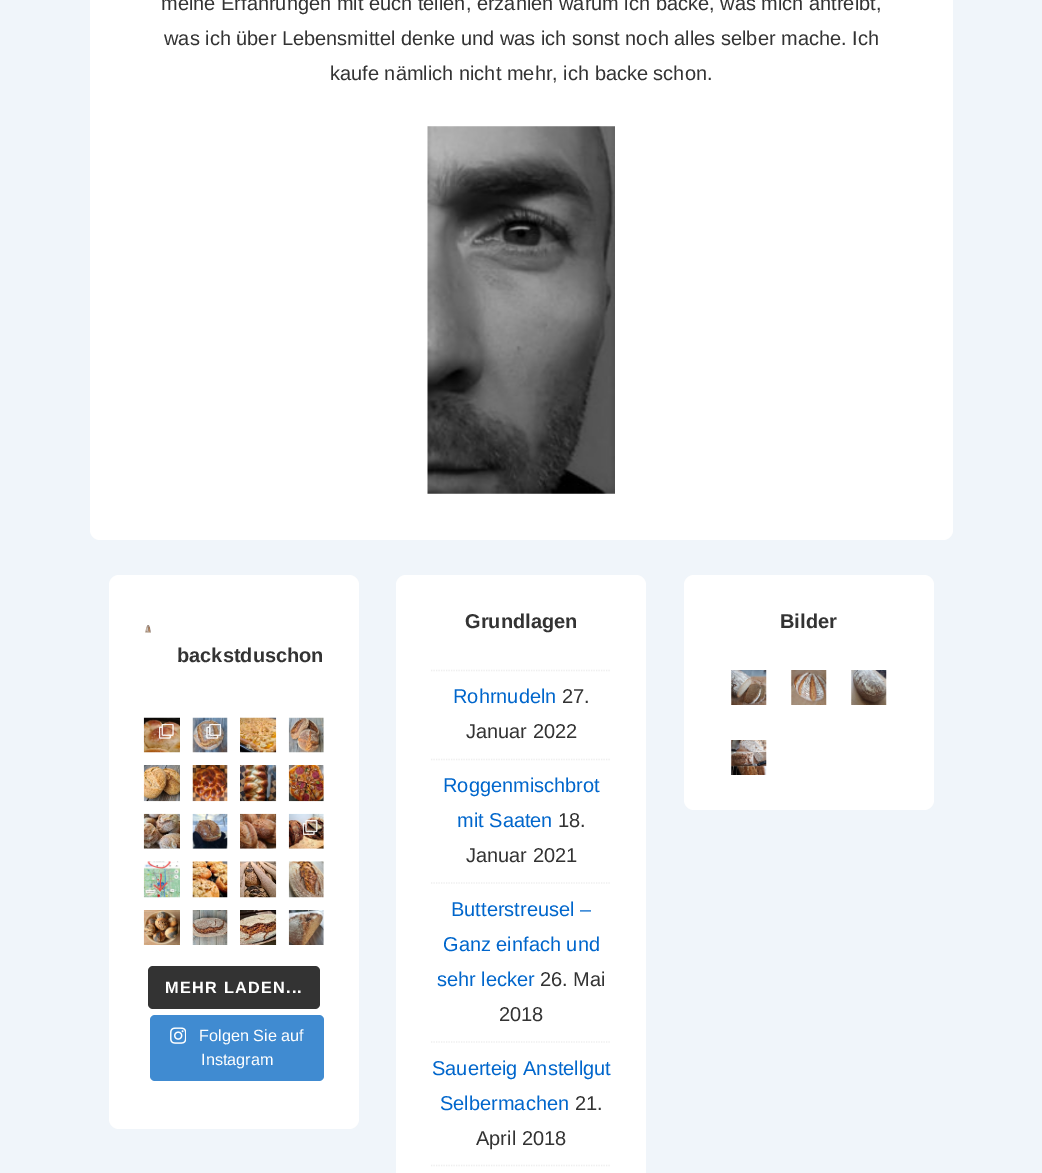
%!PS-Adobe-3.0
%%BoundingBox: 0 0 1042 1173
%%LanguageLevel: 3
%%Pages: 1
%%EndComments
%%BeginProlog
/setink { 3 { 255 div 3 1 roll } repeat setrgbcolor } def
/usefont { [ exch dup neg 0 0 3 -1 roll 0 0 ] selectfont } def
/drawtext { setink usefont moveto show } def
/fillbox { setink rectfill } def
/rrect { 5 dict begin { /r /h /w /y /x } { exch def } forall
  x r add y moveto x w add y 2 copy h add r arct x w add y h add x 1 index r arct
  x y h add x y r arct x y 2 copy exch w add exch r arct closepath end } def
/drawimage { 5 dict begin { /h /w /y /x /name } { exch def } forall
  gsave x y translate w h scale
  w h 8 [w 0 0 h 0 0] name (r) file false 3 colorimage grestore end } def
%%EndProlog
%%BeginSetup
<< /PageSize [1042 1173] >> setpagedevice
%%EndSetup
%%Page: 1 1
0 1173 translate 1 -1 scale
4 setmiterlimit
0 0 1042 1173 240 245 250 fillbox
255 255 255 setink
90 -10 863 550 10 rrect fill
(meine Erfahrungen mit euch teilen, erzählen warum ich backe, was mich antreibt,) 161 10 /LiberationSans-Regular 20 51 51 51 drawtext
(was ich über Lebensmittel denke und was ich sonst noch alles selber mache. Ich) 164 45 /LiberationSans-Regular 20 51 51 51 drawtext
(kaufe nämlich nicht mehr, ich backe schon.) 330 80 /LiberationSans-Regular 20 51 51 51 drawtext
(assets/img1.rgb) 427 126 188 368 drawimage
255 255 255 setink
396 575 250 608 10 rrect fill
(Grundlagen) 465 628 /LiberationSans-Bold 20 51 51 51 drawtext
238 238 238 setink
1.2 setlinewidth
[1.25 1.25] 0 setdash
431 670.5 moveto 611 670.5 lineto stroke
(Rohrnudeln) 453 703 /LiberationSans-Regular 20 0 102 204 drawtext
(27.) 562 703 /LiberationSans-Regular 20 51 51 51 drawtext
(Januar 2022) 466 738 /LiberationSans-Regular 20 51 51 51 drawtext
238 238 238 setink
431 759.5 moveto 611 759.5 lineto stroke
(Roggenmischbrot) 443 792 /LiberationSans-Regular 20 0 102 204 drawtext
(mit Saaten) 457 827 /LiberationSans-Regular 20 0 102 204 drawtext
(18.) 558 827 /LiberationSans-Regular 20 51 51 51 drawtext
(Januar 2021) 466 862 /LiberationSans-Regular 20 51 51 51 drawtext
238 238 238 setink
431 883 moveto 611 883 lineto stroke
(Butterstreusel –) 451 916 /LiberationSans-Regular 20 0 102 204 drawtext
(Ganz einfach und) 443 951 /LiberationSans-Regular 20 0 102 204 drawtext
(sehr lecker) 437 986 /LiberationSans-Regular 20 0 102 204 drawtext
(26. Mai) 540 986 /LiberationSans-Regular 20 51 51 51 drawtext
(2018) 499 1021 /LiberationSans-Regular 20 51 51 51 drawtext
238 238 238 setink
431 1042 moveto 611 1042 lineto stroke
(Sauerteig Anstellgut) 432 1075 /LiberationSans-Regular 20 0 102 204 drawtext
(Selbermachen) 440 1110 /LiberationSans-Regular 20 0 102 204 drawtext
(21.) 575 1110 /LiberationSans-Regular 20 51 51 51 drawtext
(April 2018) 476 1145 /LiberationSans-Regular 20 51 51 51 drawtext
238 238 238 setink
431 1165.5 moveto 611 1165.5 lineto stroke
255 255 255 setink
684 575 250 235 10 rrect fill
(Bilder) 780 628 /LiberationSans-Bold 20 51 51 51 drawtext
(assets/img2.rgb) 731 670 36 35 drawimage
(assets/img3.rgb) 791 670 36 35 drawimage
(assets/img4.rgb) 851 670 36 35 drawimage
(assets/img5.rgb) 731 740 36 35 drawimage
255 255 255 setink
109 575 250 554 10 rrect fill
(assets/img6.rgb) 145 625 6 8 drawimage
(backstduschon) 177 662 /LiberationSans-Bold 20 51 51 51 drawtext
(assets/img7.rgb) 143 717 37 36 drawimage
(assets/img8.rgb) 159 724 15 15 drawimage
(assets/img9.rgb) 192 717 36 36 drawimage
(assets/img10.rgb) 206 724 15 15 drawimage
(assets/img11.rgb) 240 717 37 36 drawimage
(assets/img12.rgb) 288 717 36 36 drawimage
(assets/img13.rgb) 143 765 37 37 drawimage
(assets/img14.rgb) 192 765 36 37 drawimage
(assets/img15.rgb) 240 765 37 37 drawimage
(assets/img16.rgb) 288 765 36 37 drawimage
(assets/img17.rgb) 143 813 37 36 drawimage
(assets/img18.rgb) 192 813 36 36 drawimage
(assets/img19.rgb) 240 813 37 36 drawimage
(assets/img20.rgb) 288 813 36 36 drawimage
(assets/img21.rgb) 303 820 15 15 drawimage
(assets/img22.rgb) 143 861 37 37 drawimage
(assets/img23.rgb) 192 861 36 37 drawimage
(assets/img24.rgb) 240 861 37 37 drawimage
(assets/img25.rgb) 288 861 36 37 drawimage
(assets/img26.rgb) 143 910 37 35 drawimage
(assets/img27.rgb) 192 910 36 35 drawimage
(assets/img28.rgb) 240 910 37 35 drawimage
(assets/img29.rgb) 288 910 36 35 drawimage
148 966 172 43 5 rrect fill
/LiberationSans-Bold 16.25 usefont
255 255 255 setink
165 993 moveto 1.25 0 (MEHR LADEN...) ashow
64 139 209 setink
150 1015 174 66 5 rrect fill
(assets/img30.rgb) 170 1027 16 17 drawimage
(Folgen Sie auf) 199 1041 /LiberationSans-Regular 16.25 255 255 255 drawtext
(Instagram) 201 1065 /LiberationSans-Regular 16.25 255 255 255 drawtext
showpage
%%EOF
